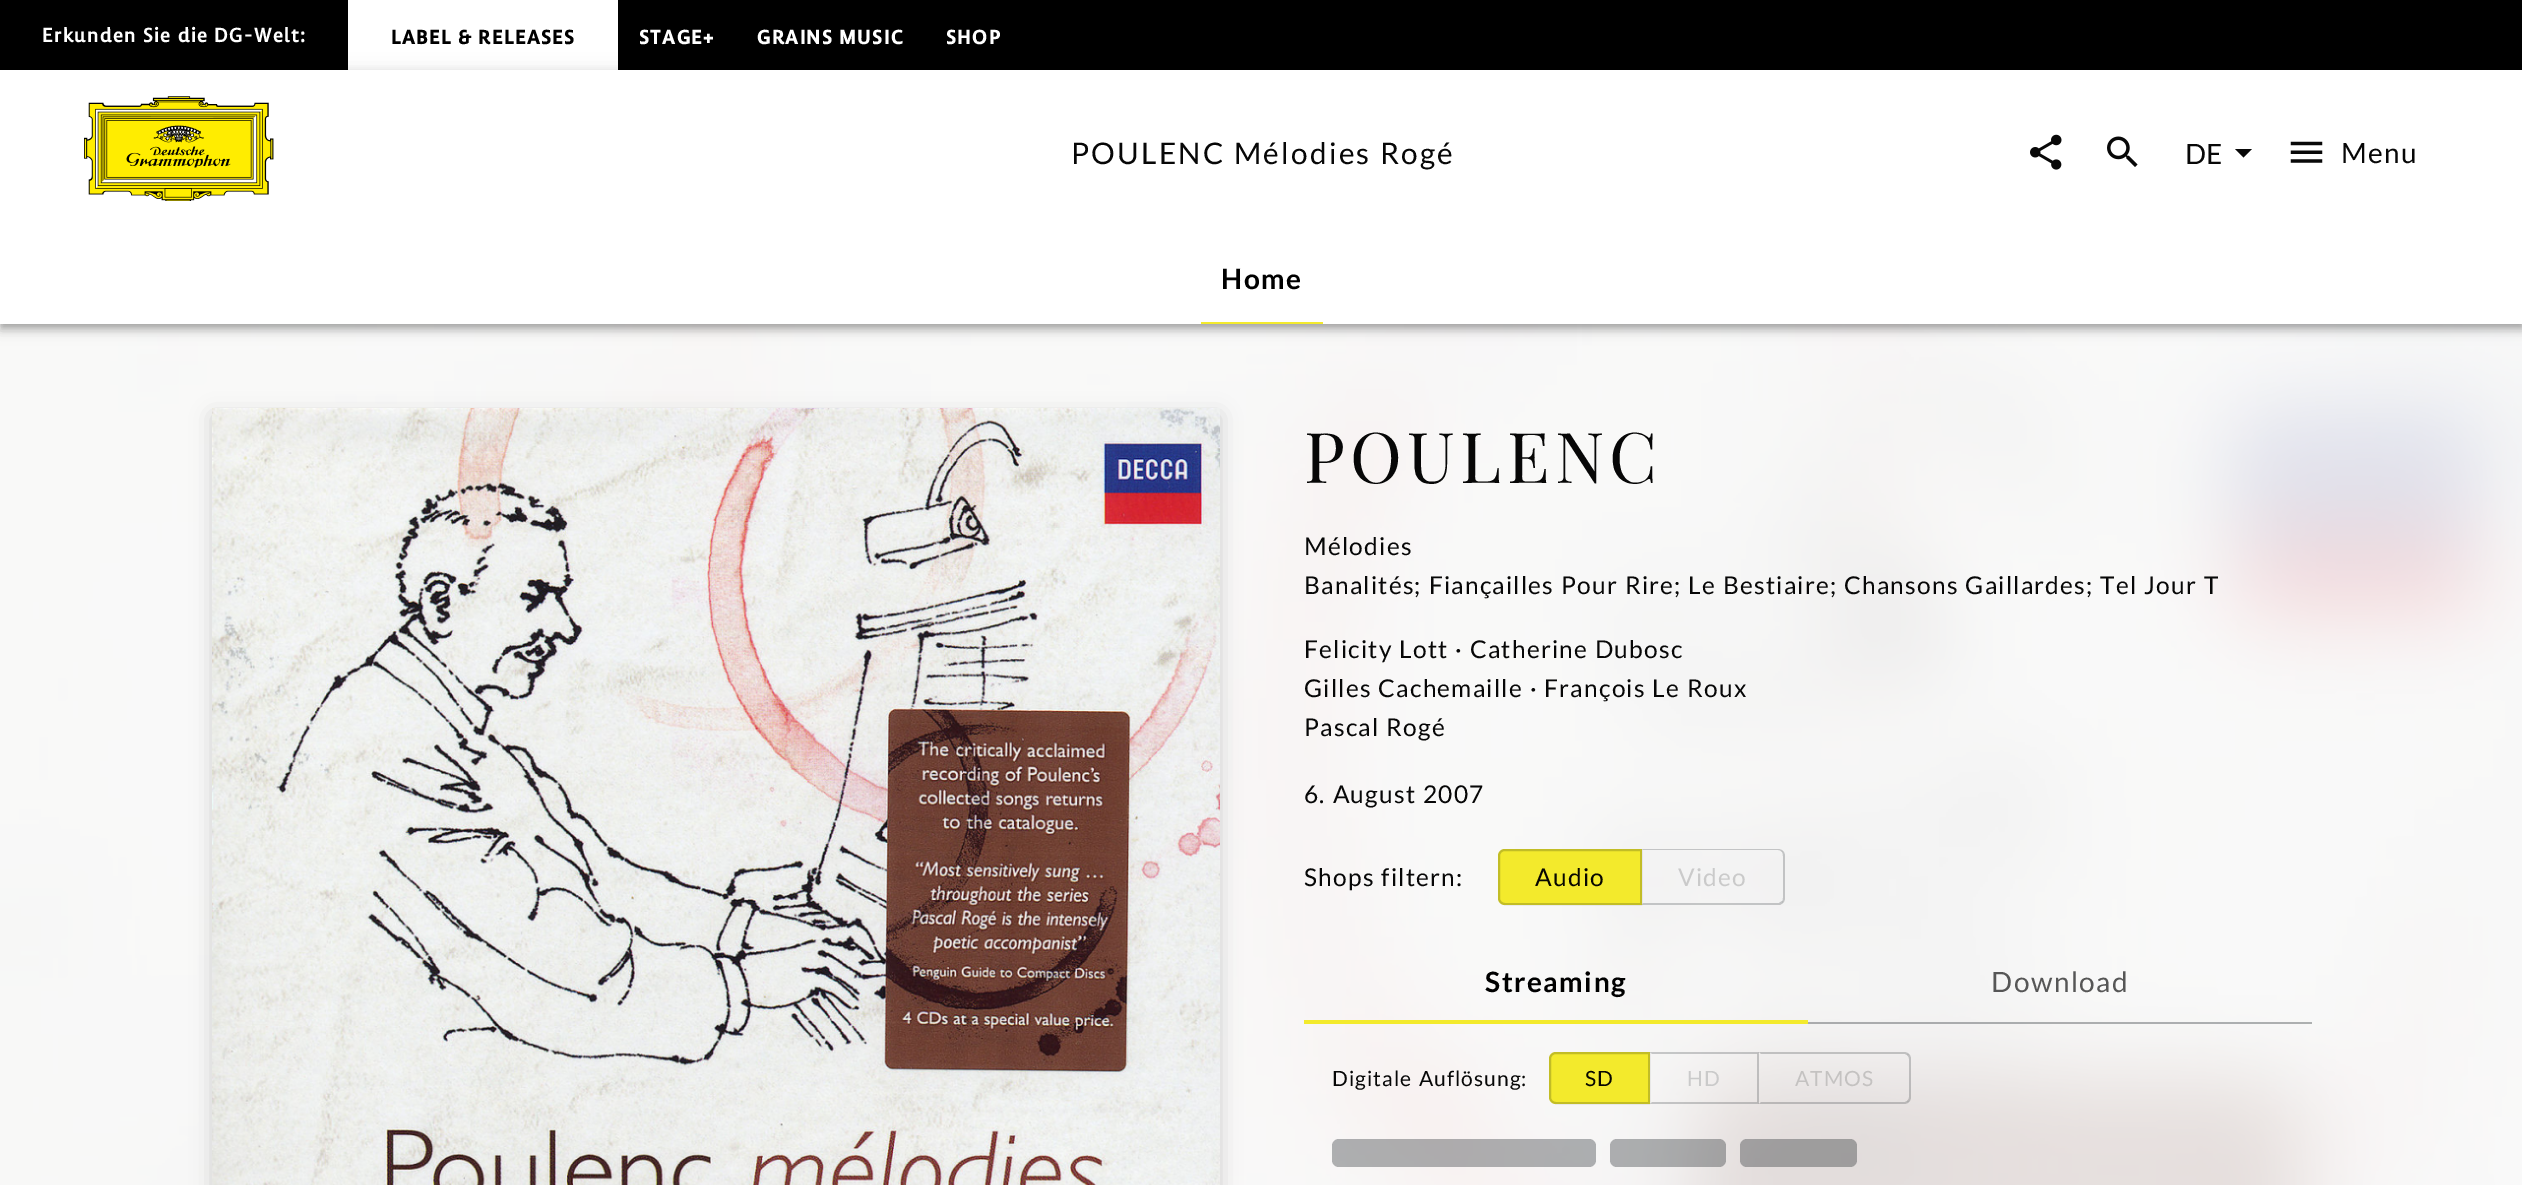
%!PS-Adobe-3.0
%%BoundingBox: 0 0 2522 1185
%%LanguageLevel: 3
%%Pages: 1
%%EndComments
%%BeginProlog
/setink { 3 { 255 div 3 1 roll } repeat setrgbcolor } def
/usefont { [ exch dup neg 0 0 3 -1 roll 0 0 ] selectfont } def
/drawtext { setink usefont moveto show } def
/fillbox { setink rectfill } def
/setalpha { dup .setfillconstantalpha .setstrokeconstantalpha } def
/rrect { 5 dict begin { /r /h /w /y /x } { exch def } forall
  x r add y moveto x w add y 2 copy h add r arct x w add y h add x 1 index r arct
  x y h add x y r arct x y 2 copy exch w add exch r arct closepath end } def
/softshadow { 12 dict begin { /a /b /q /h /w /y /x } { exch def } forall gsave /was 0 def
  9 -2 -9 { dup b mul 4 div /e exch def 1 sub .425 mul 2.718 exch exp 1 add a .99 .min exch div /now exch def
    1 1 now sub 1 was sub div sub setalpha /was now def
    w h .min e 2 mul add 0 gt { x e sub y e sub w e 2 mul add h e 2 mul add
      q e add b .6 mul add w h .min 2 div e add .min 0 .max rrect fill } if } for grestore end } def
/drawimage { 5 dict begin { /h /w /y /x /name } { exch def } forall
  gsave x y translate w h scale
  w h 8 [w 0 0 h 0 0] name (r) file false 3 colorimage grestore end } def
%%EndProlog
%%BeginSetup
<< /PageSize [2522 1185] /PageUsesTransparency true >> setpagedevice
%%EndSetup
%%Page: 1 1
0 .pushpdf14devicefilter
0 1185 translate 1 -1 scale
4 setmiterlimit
0 0 2522 1185 250 250 250 fillbox
0 0 2522 70 0 0 0 fillbox
/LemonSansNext-Medium 21 usefont
255 255 255 setink
42 42 moveto 1.05 0 (Erkunden Sie die DG-Welt:) ashow
348 0 270 70 255 255 255 fillbox
/LemonSansNext-Bold 21 usefont
0 0 0 setink
391 44 moveto 1.05 0 (LABEL & RELEASES) ashow
255 255 255 setink
639 44 moveto 1.05 0 (STAGE+) ashow
757 44 moveto 1.05 0 (GRAINS MUSIC) ashow
946 44 moveto 1.05 0 (SHOP) ashow
(assets/img5.rgb) 0 324 2522 861 drawimage
0 0 0 setink
0 72 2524 254 0 9 0.12 softshadow
0 77 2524 254 0 4.5 0.14 softshadow
2 75 2520 251 0 3.5 0.2 softshadow
0 70 2522 254 255 255 255 fillbox
(assets/img1.rgb) 84 96 190 105 drawimage
/Lato-Regular 29.75 usefont
7 7 7 setink
1071 164 moveto 2.25 0 (POULENC Mélodies Rogé) ashow
(assets/img2.rgb) 2030 134 32 36 drawimage
(assets/img3.rgb) 2107 136 31 31 drawimage
(DE) 2185 164 /Lato-Regular 28 7 7 7 drawtext
8 8 8 setink
2235 149 moveto 2243.5 157.5 lineto 2252 149 lineto closepath fill
(assets/img4.rgb) 2290 141 33 22 drawimage
7 7 7 setink
2341 163 moveto 1.5 0 (Menu) ashow
/Lato-Bold 28 usefont
0 0 0 setink
1221 289 moveto 1.5 0 (Home) ashow
1201 322 122 2 243 234 44 fillbox
67 67 67 setink
212 415 1008 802 0 10.5 0.23 softshadow
(assets/img6.rgb) 212 408 1008 777 drawimage
/PlayfairDisplay-Regular 70 usefont
7 7 7 setink
1304 483 moveto 5.25 0 (POULENC) ashow
/Lato-Regular 24.5 usefont
1304 555 moveto 1.22 0 (Mélodies) ashow
1304 594 moveto 0.75 0 32 1.22 0 (Banalités; Fiançailles Pour Rire; Le Bestiaire; Chansons Gaillardes; Tel Jour T) awidthshow
1304 658 moveto 0.75 0 32 1.22 0 (Felicity Lott · Catherine Dubosc) awidthshow
1304 697 moveto 0.75 0 32 1.22 0 (Gilles Cachemaille · François Le Roux) awidthshow
1304 736 moveto 0.75 0 32 1.22 0 (Pascal Rogé) awidthshow
1304 803 moveto 0.75 0 32 1.22 0 (6. August 2007) awidthshow
1304 886 moveto 0.75 0 32 1.22 0 (Shops filtern) awidthshow
1456 886 moveto 1.22 0 (:) ashow
243 234 44 setink
1505 849 moveto 1642 849 lineto 1642 905 lineto 1505 905 lineto 1501 905 1498 902 1498 898 curveto 1498 856 lineto 1498 852 1501 849 1505 849 curveto closepath fill
0.2 setalpha
0 8 13 setink
2 setlinewidth
1505 850 moveto 1641 850 lineto 1641 904 lineto 1505 904 lineto 1501.5 904 1499 901.5 1499 898 curveto 1499 856 lineto 1499 852.5 1501.5 850 1505 850 curveto closepath stroke
1 setalpha
7 7 1 setink
1535 886 moveto 1.22 0 (Audio) ashow
195 196 197 setink
1642 849 moveto 1643 850 lineto 1778 850 lineto 1780 850 1781 851 1782 852 curveto 1783 851 lineto 1782 850 1780 849 1778 849 curveto closepath fill
0.2 setalpha
0 8 13 setink
1783 851 moveto 1784 852 1785 854 1785 856 curveto 1785 898 lineto 1785 900 1784 902 1783 903 curveto 1782 901 lineto 1783 901 1783 899 1783 898 curveto 1783 856 lineto 1783 855 1783 853 1782 852 curveto closepath fill
1642 905 moveto 1643 903 lineto 1779 903 lineto 1782 901 lineto 1783 903 lineto 1780 905 lineto closepath fill
1 setalpha
202 202 202 setink
1678 886 moveto 1.22 0 (Video) ashow
/Lato-Bold 28 usefont
0 0 0 setink
1485 992 moveto 1.5 0 (Streaming) ashow
0.3 setalpha
1808 1022 504 2 0 8 13 fillbox
/Lato-Regular 28 usefont
1 setalpha
86 86 86 setink
1991 992 moveto 1.5 0 (Download) ashow
1304 1020 504 4 243 234 44 fillbox
/Lato-Regular 21 usefont
7 7 7 setink
1332 1086 moveto 1 0 32 1.05 0 (Digitale Auflösung) awidthshow
1521 1086 moveto 1.05 0 (:) ashow
243 234 44 setink
1556 1052 moveto 1650 1052 lineto 1650 1104 lineto 1556 1104 lineto 1552 1104 1549 1101 1549 1097 curveto 1549 1059 lineto 1549 1055 1552 1052 1556 1052 curveto closepath fill
0.2 setalpha
0 8 13 setink
1556 1053 moveto 1649 1053 lineto 1649 1103 lineto 1556 1103 lineto 1552.5 1103 1550 1100.5 1550 1097 curveto 1550 1059 lineto 1550 1055.5 1552.5 1053 1556 1053 curveto closepath stroke
1 setalpha
7 7 1 setink
1585 1086 moveto 1.05 0 (SD) ashow
0.2 setalpha
0 8 13 setink
1650 1052 moveto 1759 1052 lineto 1757 1054 lineto 1652 1054 lineto closepath fill
1759 1052 moveto 1759 1104 lineto 1757 1102 lineto 1757 1054 lineto closepath fill
1759 1104 moveto 1650 1104 lineto 1652 1102 lineto 1757 1102 lineto closepath fill
1 setalpha
202 202 202 setink
1687 1086 moveto 1.05 0 (HD) ashow
192 192 192 setink
1759 1052 moveto 1761 1054 lineto 1905 1054 lineto 1907 1055 lineto 1909 1054 lineto 1908 1053 1906 1052 1904 1052 curveto closepath fill
0.2 setalpha
0 8 13 setink
1909 1054 moveto 1910 1055 1911 1057 1911 1059 curveto 1911 1097 lineto 1911 1099 1910 1101 1909 1102 curveto 1907 1101 lineto 1908 1100 1909 1099 1909 1097 curveto 1909 1059 lineto 1909 1057 1908 1056 1907 1055 curveto closepath fill
1909 1102 moveto 1908 1103 1906 1104 1904 1104 curveto 1759 1104 lineto 1761 1102 lineto 1905 1102 lineto 1907 1101 lineto closepath fill
1 setalpha
196 194 193 setink
1795 1086 moveto 1.05 0 (ATMOS) ashow
0.3 setalpha
0 8 13 setink
1332 1139 264 28 7 rrect fill
1610 1139 116 28 7 rrect fill
1740 1139 117 28 7 rrect fill
.poppdf14devicefilter showpage
%%EOF
